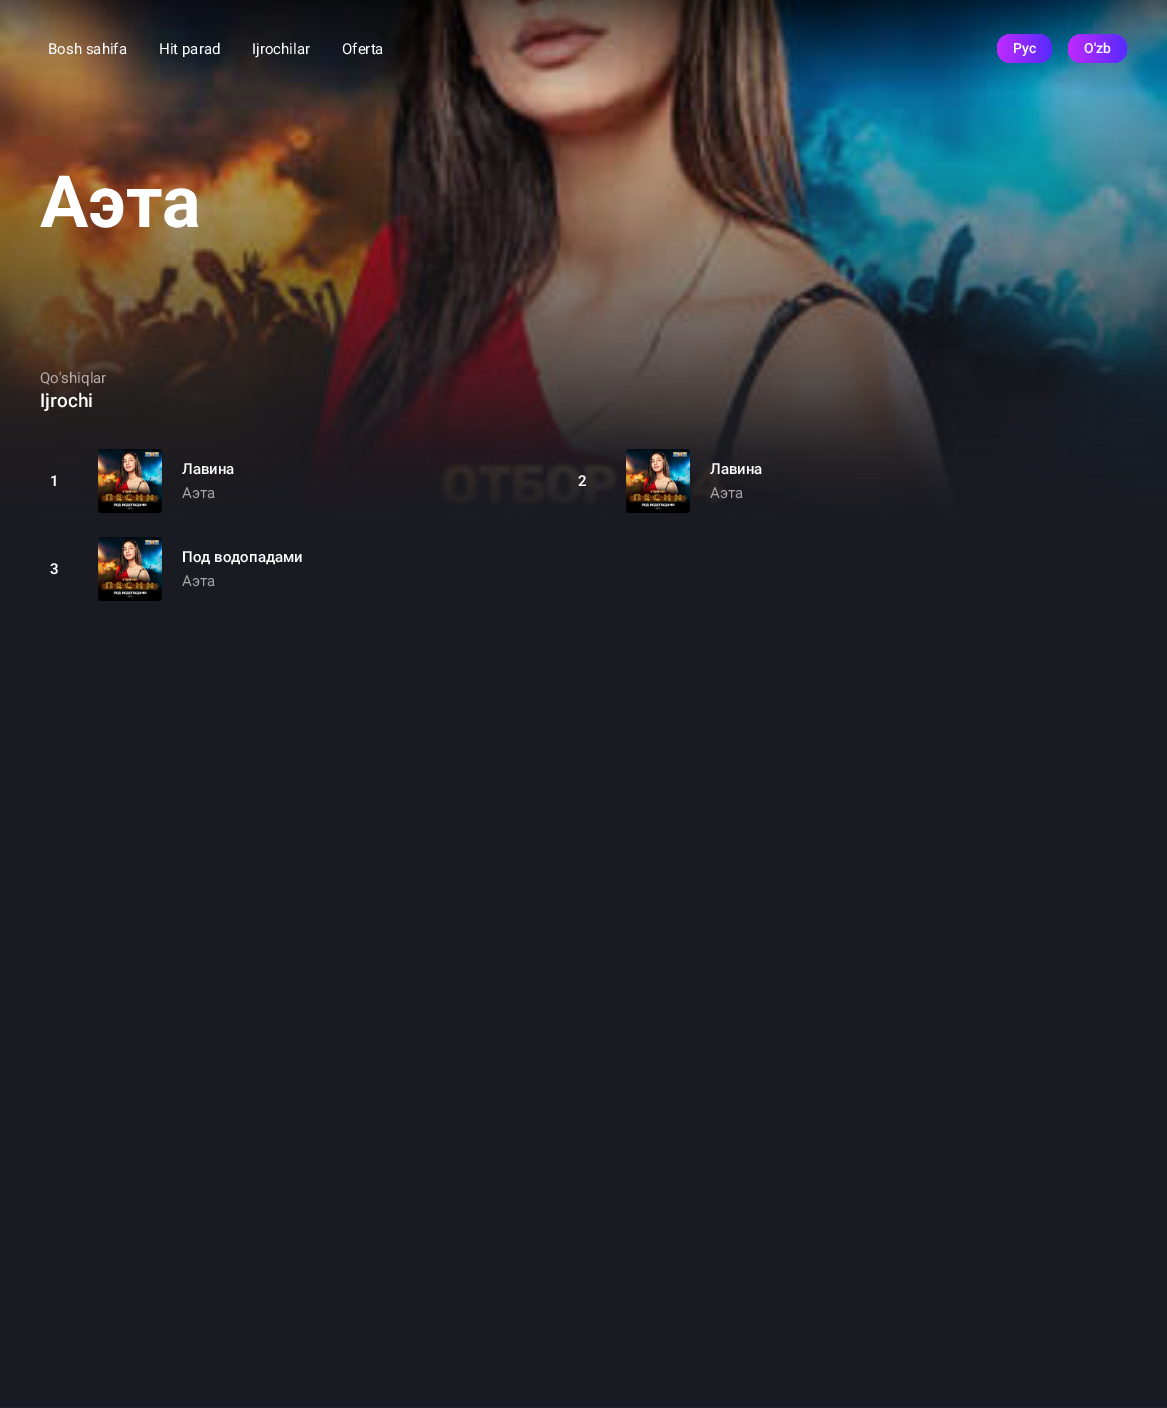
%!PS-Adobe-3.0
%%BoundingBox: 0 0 1167 1408
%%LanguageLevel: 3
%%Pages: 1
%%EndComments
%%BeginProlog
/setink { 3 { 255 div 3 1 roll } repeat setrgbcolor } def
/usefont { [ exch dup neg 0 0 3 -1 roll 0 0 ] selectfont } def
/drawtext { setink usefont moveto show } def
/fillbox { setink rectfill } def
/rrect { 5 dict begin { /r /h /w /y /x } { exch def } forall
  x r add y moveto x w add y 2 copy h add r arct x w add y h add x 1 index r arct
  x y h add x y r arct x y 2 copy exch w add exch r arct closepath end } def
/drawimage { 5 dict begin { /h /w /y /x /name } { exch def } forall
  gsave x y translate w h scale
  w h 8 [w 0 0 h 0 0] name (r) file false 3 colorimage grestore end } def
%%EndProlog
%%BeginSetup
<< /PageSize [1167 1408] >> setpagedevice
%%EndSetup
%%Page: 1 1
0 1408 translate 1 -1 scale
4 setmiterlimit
0 0 1167 1408 26 27 34 fillbox
(assets/img1.rgb) 0 0 1167 584 drawimage
(Bosh sahifa) 48 54 /Roboto-Regular 15 255 255 255 drawtext
(Hit parad) 159 54 /Roboto-Regular 15 255 255 255 drawtext
(Ijrochilar) 252 54 /Roboto-Regular 15 255 255 255 drawtext
(Oferta) 342 54 /Roboto-Regular 15 255 255 255 drawtext
gsave 997 34 55 29 14.5 rrect clip newpath
<< /ShadingType 2 /ColorSpace /DeviceRGB /Coords [997 49 1052 49] /Extend [true true] /Function << /FunctionType 2 /Domain [0 1] /C0 [0.753 0.165 0.996] /C1 [0.337 0.165 0.996] /N 1 >> >> shfill grestore
(Рус) 1013 53 /Roboto-Medium 14 255 255 255 drawtext
gsave 1068 34 59 29 14.5 rrect clip newpath
<< /ShadingType 2 /ColorSpace /DeviceRGB /Coords [1068 49 1127 49] /Extend [true true] /Function << /FunctionType 2 /Domain [0 1] /C0 [0.753 0.165 0.996] /C1 [0.337 0.165 0.996] /N 1 >> >> shfill grestore
(O'zb) 1084 53 /Roboto-Medium 14 255 255 255 drawtext
(Аэта) 40 227 /Roboto-Bold 72 255 255 255 drawtext
(Qo'shiqlar) 40 383 /Roboto-Regular 15 177 170 166 drawtext
(Ijrochi) 40 407 /Roboto-Medium 19 255 255 255 drawtext
(1) 50 486 /Roboto-SemiBold 15 255 255 255 drawtext
(assets/img2.rgb) 98 449 64 64 drawimage
(Лавина) 182 474 /Roboto-Medium 15 255 255 255 drawtext
(Аэта) 182 498 /Roboto-Regular 15 164 164 166 drawtext
(2) 578 486 /Roboto-SemiBold 15 255 255 255 drawtext
(assets/img3.rgb) 626 449 64 64 drawimage
(Лавина) 710 474 /Roboto-Medium 15 255 255 255 drawtext
(Аэта) 710 498 /Roboto-Regular 15 164 164 166 drawtext
(3) 50 574 /Roboto-SemiBold 15 255 255 255 drawtext
(assets/img4.rgb) 98 537 64 64 drawimage
(Под водопадами) 182 562 /Roboto-Medium 15 255 255 255 drawtext
(Аэта) 182 586 /Roboto-Regular 15 164 164 166 drawtext
0 1407 1167 1 33 34 43 fillbox
showpage
%%EOF
